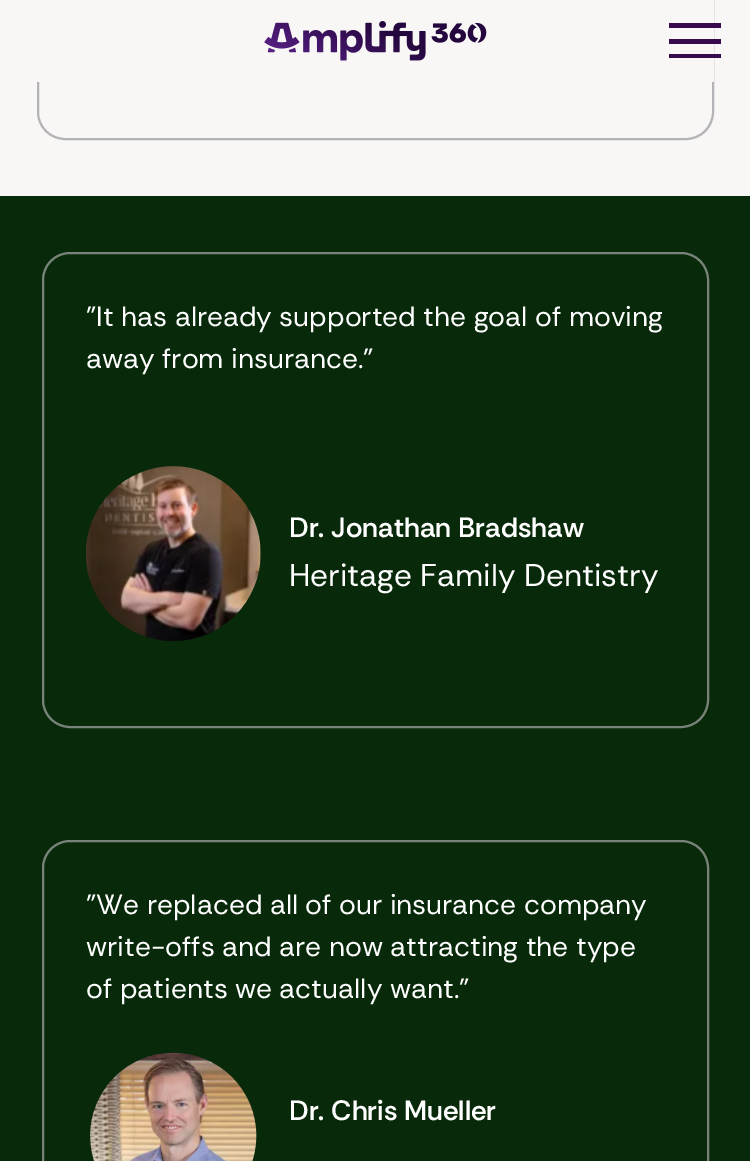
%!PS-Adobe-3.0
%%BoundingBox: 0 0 750 1161
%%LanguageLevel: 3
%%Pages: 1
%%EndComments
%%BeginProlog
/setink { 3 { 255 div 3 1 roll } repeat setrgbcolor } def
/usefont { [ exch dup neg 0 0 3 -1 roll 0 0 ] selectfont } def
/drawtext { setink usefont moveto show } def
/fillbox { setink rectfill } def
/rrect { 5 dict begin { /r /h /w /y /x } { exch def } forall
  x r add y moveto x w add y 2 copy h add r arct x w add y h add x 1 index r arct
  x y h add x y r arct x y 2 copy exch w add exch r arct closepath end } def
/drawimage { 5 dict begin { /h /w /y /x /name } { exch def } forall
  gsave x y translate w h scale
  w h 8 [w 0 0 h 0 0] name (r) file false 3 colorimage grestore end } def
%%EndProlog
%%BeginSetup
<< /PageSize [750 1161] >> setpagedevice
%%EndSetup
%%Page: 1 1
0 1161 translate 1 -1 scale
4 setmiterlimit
0 0 750 1161 248 247 245 fillbox
180 179 181 setink
2 setlinewidth
38 -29 675 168 27 rrect stroke
37 0 677 82 248 247 245 fillbox
(assets/img1.rgb) 264 21 223 40 drawimage
669 39 52 5 55 10 80 fillbox
669 23 52 5 55 10 80 fillbox
669 54 52 4 55 10 80 fillbox
0 196 750 965 8 42 10 fillbox
120 131 121 setink
43 253 665 474 27 rrect stroke
("It has already supported the goal of moving) 86 326 /RethinkSans-Regular 28 255 255 255 drawtext
(away from insurance.") 86 368 /RethinkSans-Regular 28 255 255 255 drawtext
(assets/img2.rgb) 86 466 175 175 drawimage
(Dr. Jonathan Bradshaw) 289 537 /RethinkSans-SemiBold 28 255 255 255 drawtext
(Heritage Family Dentistry) 289 586 /RethinkSans-Regular 31.5 255 255 255 drawtext
120 131 121 setink
43 841 665 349 27 rrect stroke
("We replaced all of our insurance company) 86 914 /RethinkSans-Regular 28 255 255 255 drawtext
(write-offs and are now attracting the type) 86 956 /RethinkSans-Regular 28 255 255 255 drawtext
(of patients we actually want.") 86 998 /RethinkSans-Regular 28 255 255 255 drawtext
(assets/img3.rgb) 90 1052 167 109 drawimage
(Dr. Chris Mueller) 289 1120 /RethinkSans-SemiBold 28 255 255 255 drawtext
showpage
%%EOF
